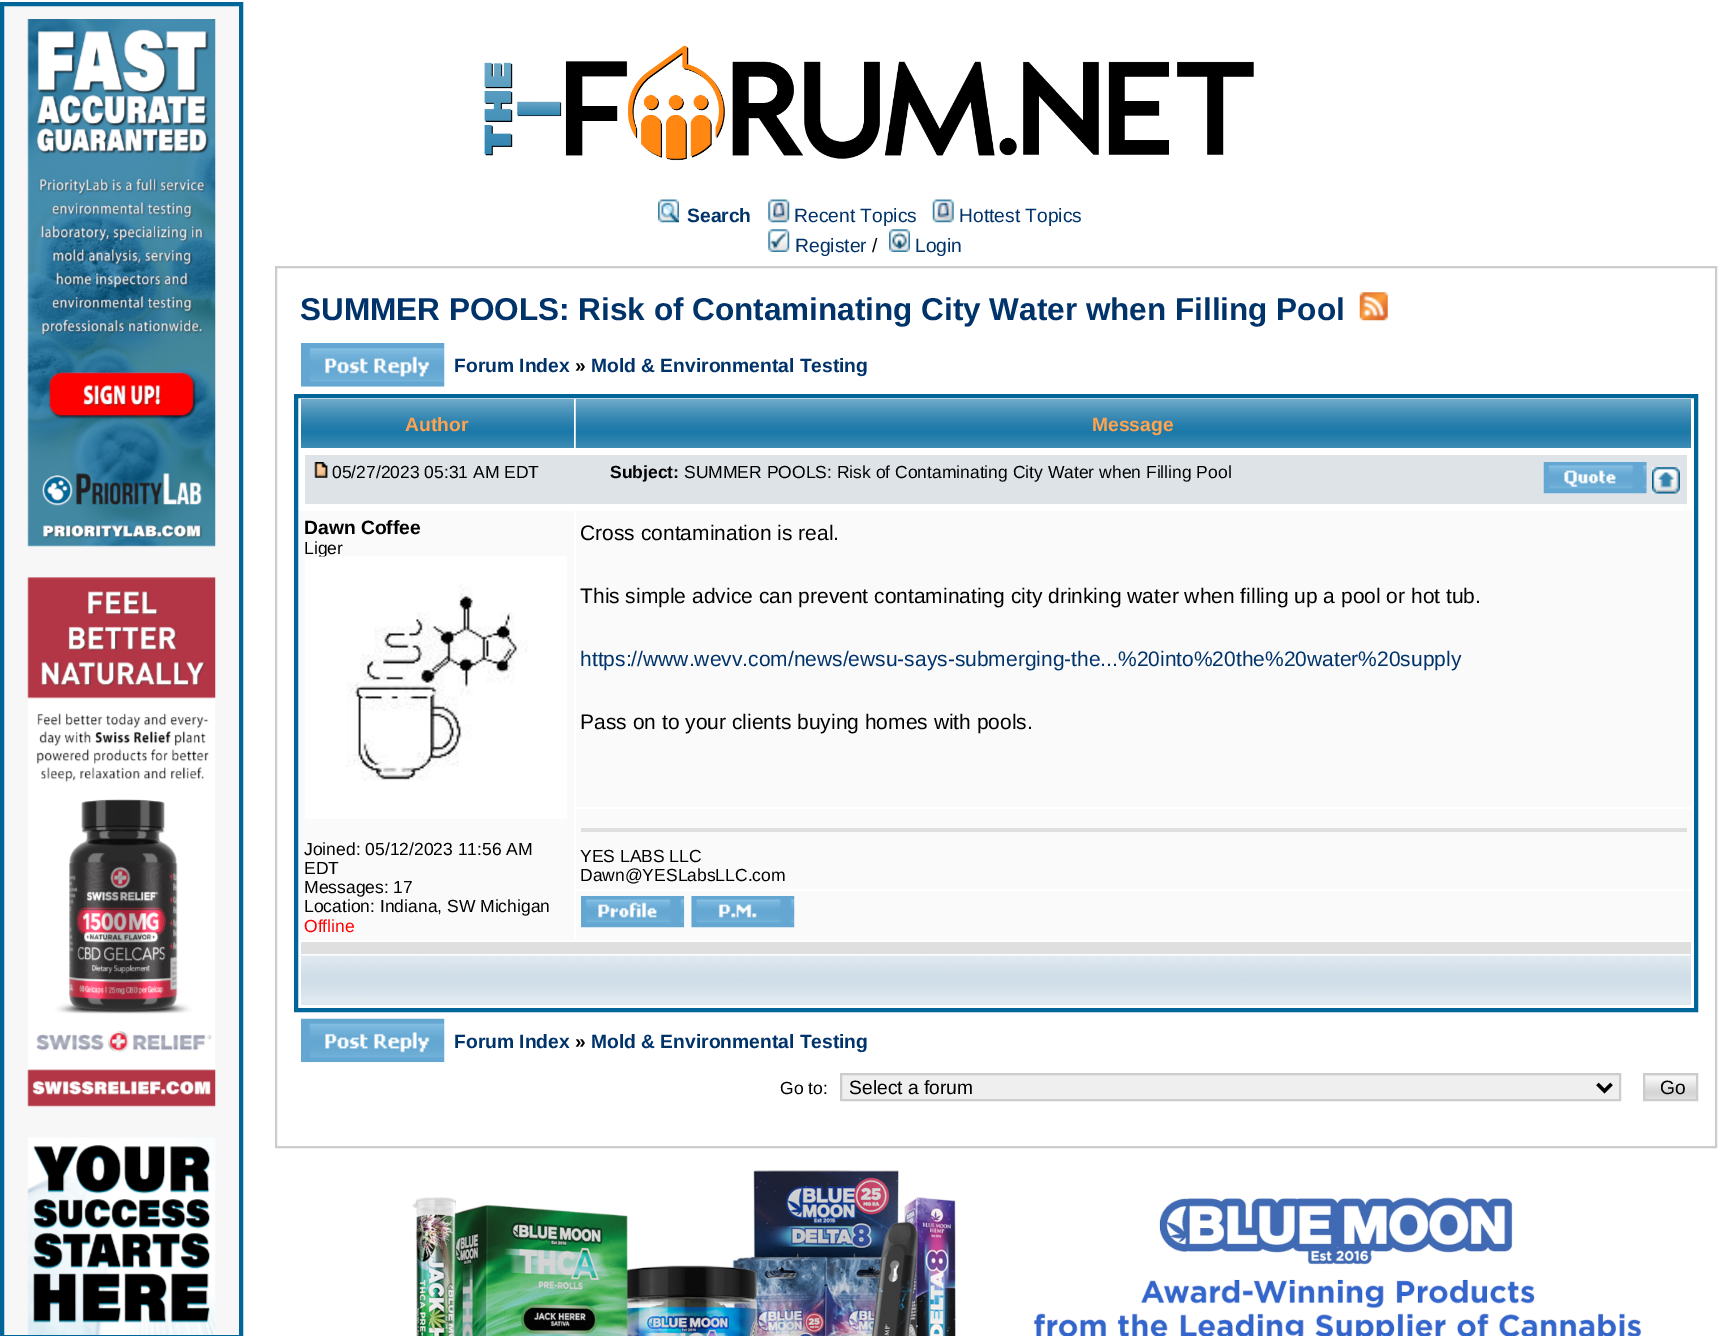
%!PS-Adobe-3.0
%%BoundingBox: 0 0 1736 1336
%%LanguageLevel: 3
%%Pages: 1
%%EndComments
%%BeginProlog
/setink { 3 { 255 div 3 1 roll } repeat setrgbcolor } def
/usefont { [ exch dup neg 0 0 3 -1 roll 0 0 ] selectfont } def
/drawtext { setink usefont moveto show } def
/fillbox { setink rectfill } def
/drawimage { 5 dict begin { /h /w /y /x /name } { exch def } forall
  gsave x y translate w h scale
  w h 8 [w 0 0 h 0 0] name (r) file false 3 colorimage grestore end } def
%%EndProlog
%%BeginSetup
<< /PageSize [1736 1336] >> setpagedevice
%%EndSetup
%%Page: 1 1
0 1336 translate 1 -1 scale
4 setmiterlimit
0 0 1736 1336 255 255 255 fillbox
(assets/img1.rgb) 484 45 770 116 drawimage
(assets/img2.rgb) 658 199 21 24 drawimage
(Search) 687 222 /LiberationSans-Bold 19.25 1 51 107 drawtext
(assets/img3.rgb) 768 199 22 24 drawimage
(Recent Topics) 794 222 /LiberationSans-Regular 19.25 1 51 107 drawtext
(assets/img4.rgb) 932 199 22 24 drawimage
(Hottest Topics) 959 222 /LiberationSans-Regular 19.25 1 51 107 drawtext
(assets/img5.rgb) 768 229 22 23 drawimage
(Register) 795 252 /LiberationSans-Regular 19.25 1 51 107 drawtext
(/) 872 252 /LiberationSans-Regular 19.25 0 0 0 drawtext
(assets/img6.rgb) 889 229 21 23 drawimage
(Login) 915 252 /LiberationSans-Regular 19.25 1 51 107 drawtext
247 247 248 setink
2 4 moveto 241 4 lineto 241 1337 lineto 2 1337 lineto closepath gsave fill grestore
0 102 153 setink
4 setlinewidth
stroke
(assets/img7.rgb) 27 19 189 528 drawimage
(assets/img8.rgb) 27 577 189 530 drawimage
(assets/img9.rgb) 27 1137 189 198 drawimage
204 204 204 setink
2 setlinewidth
276 267 1440 880 rectstroke
(SUMMER POOLS: Risk of Contaminating City Water when Filling Pool) 300 320 /LiberationSans-Bold 31.5 1 51 107 drawtext
(assets/img10.rgb) 1359 292 29 29 drawimage
(assets/img11.rgb) 301 343 144 44 drawimage
(Forum Index) 454 372 /LiberationSans-Bold 19.25 1 51 107 drawtext
(») 575 372 /LiberationSans-Bold 19.25 0 0 0 drawtext
(Mold & Environmental Testing) 591 372 /LiberationSans-Bold 19.25 1 51 107 drawtext
0 102 153 setink
4 setlinewidth
296 396 1400 614 rectstroke
(assets/img12.rgb) 301 399 273 49 drawimage
(Author) 405 431 /LiberationSans-Bold 19.25 255 163 79 drawtext
(assets/img13.rgb) 575 399 1116 49 drawimage
(Message) 1092 431 /LiberationSans-Bold 19.25 255 163 79 drawtext
305 455 1382 49 222 227 231 fillbox
(assets/img14.rgb) 314 462 14 16 drawimage
(05/27/2023 05:31 AM EDT) 332 478 /LiberationSans-Regular 17.5 0 0 0 drawtext
(Subject:) 610 478 /LiberationSans-Bold 17.5 0 0 0 drawtext
(SUMMER POOLS: Risk of Contaminating City Water when Filling Pool) 684 478 /LiberationSans-Regular 17.5 0 0 0 drawtext
(assets/img15.rgb) 1543 462 104 32 drawimage
(assets/img16.rgb) 1652 467 28 27 drawimage
299 511 275 429 250 250 250 fillbox
(Dawn Coffee) 304 534 /LiberationSans-Bold 19.25 0 0 0 drawtext
(Liger) 304 554 /LiberationSans-Regular 17.5 0 0 0 drawtext
(assets/img17.rgb) 305 556 262 263 drawimage
(Joined: 05/12/2023 11:56 AM) 304 855 /LiberationSans-Regular 17.5 0 0 0 drawtext
(EDT) 304 874 /LiberationSans-Regular 17.5 0 0 0 drawtext
(Messages: 17) 304 893 /LiberationSans-Regular 17.5 0 0 0 drawtext
(Location: Indiana, SW Michigan) 304 912 /LiberationSans-Regular 17.5 0 0 0 drawtext
(Offline) 304 932 /LiberationSans-Regular 17.5 255 0 0 drawtext
576 511 1116 296 250 250 250 fillbox
(Cross contamination is real.) 580 540 /LiberationSans-Regular 21 0 0 0 drawtext
(This simple advice can prevent contaminating city drinking water when filling up a pool or hot tub.) 580 603 /LiberationSans-Regular 21 0 0 0 drawtext
(https://www.wevv.com/news/ewsu-says-submerging-the...%20into%20the%20water%20supply) 580 666 /LiberationSans-Regular 21 1 51 107 drawtext
(Pass on to your clients buying homes with pools.) 580 729 /LiberationSans-Regular 21 0 0 0 drawtext
576 809 1116 80 250 250 250 fillbox
581 828 1106 4 223 223 223 fillbox
(YES LABS LLC) 580 862 /LiberationSans-Regular 17.5 0 0 0 drawtext
(Dawn@YESLabsLLC.com) 580 881 /LiberationSans-Regular 17.5 0 0 0 drawtext
576 891 1116 49 250 250 250 fillbox
(assets/img18.rgb) 581 896 104 32 drawimage
(assets/img19.rgb) 691 896 104 32 drawimage
301 942 1390 12 223 223 223 fillbox
(assets/img20.rgb) 299 955 1394 52 drawimage
1691 956 2 50 255 255 255 fillbox
299 1005 1393 2 255 255 255 fillbox
299 956 2 50 255 255 255 fillbox
(assets/img21.rgb) 301 1018 144 45 drawimage
(Forum Index) 454 1048 /LiberationSans-Bold 19.25 1 51 107 drawtext
(») 575 1048 /LiberationSans-Bold 19.25 0 0 0 drawtext
(Mold & Environmental Testing) 591 1048 /LiberationSans-Bold 19.25 1 51 107 drawtext
(Go to:) 780 1094 /LiberationSans-Regular 17.5 0 0 0 drawtext
239 239 239 setink
841 1074 moveto 1620 1074 lineto 1620 1100 lineto 841 1100 lineto closepath gsave fill grestore
204 204 204 setink
2 setlinewidth
stroke
0 0 0 setink
3.5 setlinewidth
1597.5 1084 moveto 1604.5 1091 lineto 1611.5 1084 lineto stroke
(Select a forum) 849 1094 /LiberationSans-Regular 19.25 0 0 0 drawtext
(assets/img22.rgb) 1645 1075 51 24 drawimage
204 204 204 setink
2 setlinewidth
1644 1074 53 26 rectstroke
(Go) 1660 1094 /LiberationSans-Regular 19.25 0 0 0 drawtext
(assets/img23.rgb) 412 1170 1230 166 drawimage
showpage
%%EOF
